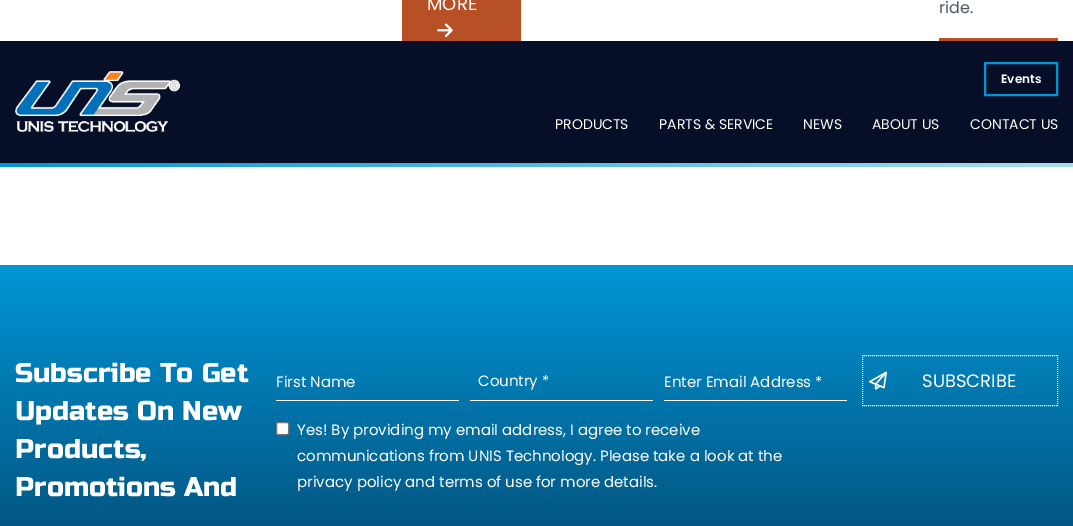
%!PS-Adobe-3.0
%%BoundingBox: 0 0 1073 526
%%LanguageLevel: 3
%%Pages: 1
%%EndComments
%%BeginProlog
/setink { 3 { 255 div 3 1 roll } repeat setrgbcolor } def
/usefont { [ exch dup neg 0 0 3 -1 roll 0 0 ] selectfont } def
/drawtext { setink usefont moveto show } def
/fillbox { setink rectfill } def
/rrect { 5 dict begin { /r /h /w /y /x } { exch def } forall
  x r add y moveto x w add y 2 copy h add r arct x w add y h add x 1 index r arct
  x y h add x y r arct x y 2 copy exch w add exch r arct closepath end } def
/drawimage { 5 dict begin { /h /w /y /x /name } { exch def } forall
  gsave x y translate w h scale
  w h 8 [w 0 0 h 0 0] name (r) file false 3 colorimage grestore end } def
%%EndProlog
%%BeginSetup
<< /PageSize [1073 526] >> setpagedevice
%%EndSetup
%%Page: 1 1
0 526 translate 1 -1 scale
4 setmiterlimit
0 0 1073 526 255 255 255 fillbox
402 0 119 41 183 80 36 fillbox
(MORE) 427 10 /Poppins-Regular 18 255 255 255 drawtext
(assets/img1.rgb) 437 23 16 14 drawimage
(ride.) 939 13 /Poppins-Regular 16 70 92 109 drawtext
939 38 119 3 183 80 36 fillbox
0 41 1073 122 6 15 39 fillbox
(assets/img2.rgb) 15 71 165 61 drawimage
0 150 214 setink
2 setlinewidth
985 63 72 32 rectstroke
(Events) 1001 83 /Poppins-SemiBold 12 255 255 255 drawtext
(PRODUCTS) 555 129 /Poppins-Regular 14 255 255 255 drawtext
(PARTS & SERVICE) 659 129 /Poppins-Regular 14 255 255 255 drawtext
(NEWS) 803 129 /Poppins-Regular 14 255 255 255 drawtext
(ABOUT US) 872 129 /Poppins-Regular 14 255 255 255 drawtext
(CONTACT US) 970 129 /Poppins-Regular 14 255 255 255 drawtext
gsave 0 163 moveto 1073 163 lineto 1073 167 lineto 0 167 lineto closepath clip newpath
<< /ShadingType 2 /ColorSpace /DeviceRGB /Coords [0 165 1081 165] /Extend [true true] /Function << /FunctionType 2 /Domain [0 1] /C0 [0 0.588 0.839] /C1 [0.667 0.871 0.918] /N 1 >> >> shfill grestore
gsave 0 265 moveto 1073 265 lineto 1073 526 lineto 0 526 lineto closepath clip newpath
<< /ShadingType 2 /ColorSpace /DeviceRGB /Coords [537 265 537 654] /Extend [true true] /Function << /FunctionType 2 /Domain [0 1] /C0 [0 0.588 0.839] /C1 [0.016 0.22 0.361] /N 1 >> >> shfill grestore
(Subscribe To Get) 15 382 /RussoOne-Regular 27 255 255 255 drawtext
(Updates On New) 15 420 /RussoOne-Regular 27 255 255 255 drawtext
(Products,) 15 458 /RussoOne-Regular 27 255 255 255 drawtext
(Promotions And) 15 496 /RussoOne-Regular 27 255 255 255 drawtext
276 400 183 1 255 255 255 fillbox
(First Name) 276 387 /Poppins-Regular 15 255 255 255 drawtext
470 400 183 1 255 255 255 fillbox
(Country *) 478 386 /Poppins-Regular 15 255 255 255 drawtext
664 400 183 1 255 255 255 fillbox
(Enter Email Address *) 664 387 /Poppins-Regular 15 255 255 255 drawtext
276.5 422.5 12 12 1.5 rrect gsave fill grestore
118 118 118 setink
1 setlinewidth
stroke
(Yes! By providing my email address, I agree to receive) 297 435 /Poppins-Regular 15 255 255 255 drawtext
(communications from UNIS Technology. Please take a look at the) 297 461 /Poppins-Regular 15 255 255 255 drawtext
(privacy policy and terms of use for more details.) 297 487 /Poppins-Regular 15 255 255 255 drawtext
(assets/img3.rgb) 868 371 19 19 drawimage
[1 1] 0 setdash
862 355.5 moveto 1058 355.5 lineto stroke
1057.5 355 moveto 1057.5 406 lineto stroke
862 405.5 moveto 1058 405.5 lineto stroke
862.5 355 moveto 862.5 406 lineto stroke
(SUBSCRIBE) 922 387 /Poppins-Regular 18 255 255 255 drawtext
showpage
%%EOF
